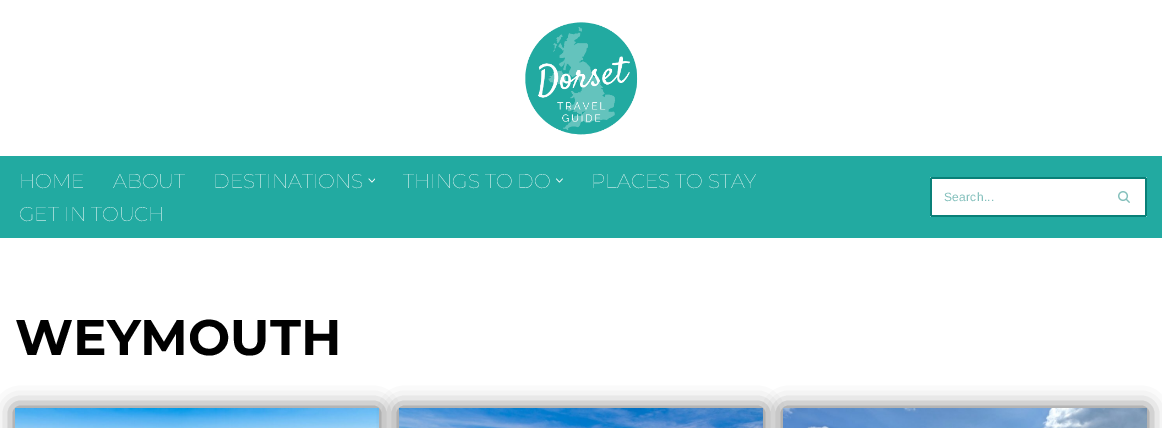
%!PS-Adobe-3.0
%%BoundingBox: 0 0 1162 428
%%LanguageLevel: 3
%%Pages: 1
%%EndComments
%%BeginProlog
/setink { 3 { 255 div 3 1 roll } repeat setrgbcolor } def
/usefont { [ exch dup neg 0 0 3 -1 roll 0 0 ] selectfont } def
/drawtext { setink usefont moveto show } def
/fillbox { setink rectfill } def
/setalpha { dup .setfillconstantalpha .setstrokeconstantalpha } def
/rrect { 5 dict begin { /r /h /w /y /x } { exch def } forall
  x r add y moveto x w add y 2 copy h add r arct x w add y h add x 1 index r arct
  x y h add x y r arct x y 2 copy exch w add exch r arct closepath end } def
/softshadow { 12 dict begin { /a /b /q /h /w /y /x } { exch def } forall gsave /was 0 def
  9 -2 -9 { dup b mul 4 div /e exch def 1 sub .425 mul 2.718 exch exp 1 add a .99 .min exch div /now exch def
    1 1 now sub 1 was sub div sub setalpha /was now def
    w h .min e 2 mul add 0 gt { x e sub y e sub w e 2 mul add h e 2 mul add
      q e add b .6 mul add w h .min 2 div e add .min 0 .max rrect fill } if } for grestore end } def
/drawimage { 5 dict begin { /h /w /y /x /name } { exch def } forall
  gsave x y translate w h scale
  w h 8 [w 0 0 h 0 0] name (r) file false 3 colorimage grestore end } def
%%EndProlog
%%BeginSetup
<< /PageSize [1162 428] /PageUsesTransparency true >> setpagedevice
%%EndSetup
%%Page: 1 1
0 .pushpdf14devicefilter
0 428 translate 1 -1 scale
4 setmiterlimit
0 0 1162 428 255 255 255 fillbox
(assets/img1.rgb) 525 22 113 113 drawimage
0 156 1162 82 34 170 161 fillbox
(HOME) 19 188 /Montserrat-Thin 20 254 254 254 drawtext
(ABOUT) 113 188 /Montserrat-Thin 20 254 254 254 drawtext
(DESTINATIONS) 213 188 /Montserrat-Thin 20 254 254 254 drawtext
(assets/img2.rgb) 368 178 7 5 drawimage
(THINGS TO DO) 403 188 /Montserrat-Thin 20 254 254 254 drawtext
(assets/img3.rgb) 556 178 7 5 drawimage
(PLACES TO STAY) 591 188 /Montserrat-Thin 20 254 254 254 drawtext
(GET IN TOUCH) 19 221 /Montserrat-Thin 20 254 254 254 drawtext
255 255 255 setink
932 177 moveto 1102 177 lineto 1102 217 lineto 932 217 lineto 931 217 930 216 930 215 curveto 930 179 lineto 930 178 931 177 932 177 curveto closepath fill
931 177 171 2 9 128 120 fillbox
931 215 171 2 9 128 120 fillbox
930 178 2 38 9 128 120 fillbox
/LiberationSans-Regular 12 usefont
132 192 188 setink
944 201 moveto 0.25 0 (Search...) ashow
255 255 255 setink
1102 177 moveto 1145 177 lineto 1146 177 1147 178 1147 179 curveto 1147 215 lineto 1147 216 1146 217 1145 217 curveto 1102 217 lineto closepath fill
1102 177 44 2 9 128 120 fillbox
1145 178 2 38 9 128 120 fillbox
1102 215 44 2 9 128 120 fillbox
(assets/img4.rgb) 1118 191 12 12 drawimage
(WEYMOUTH) 15 355 /Montserrat-Bold 50 0 0 0 drawtext
15 408 364 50 0 10 0.6 softshadow
(assets/img5.rgb) 15 408 364 20 drawimage
399 408 364 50 0 10 0.6 softshadow
(assets/img6.rgb) 399 408 364 20 drawimage
783 408 364 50 0 10 0.6 softshadow
(assets/img7.rgb) 783 408 364 20 drawimage
.poppdf14devicefilter showpage
%%EOF
